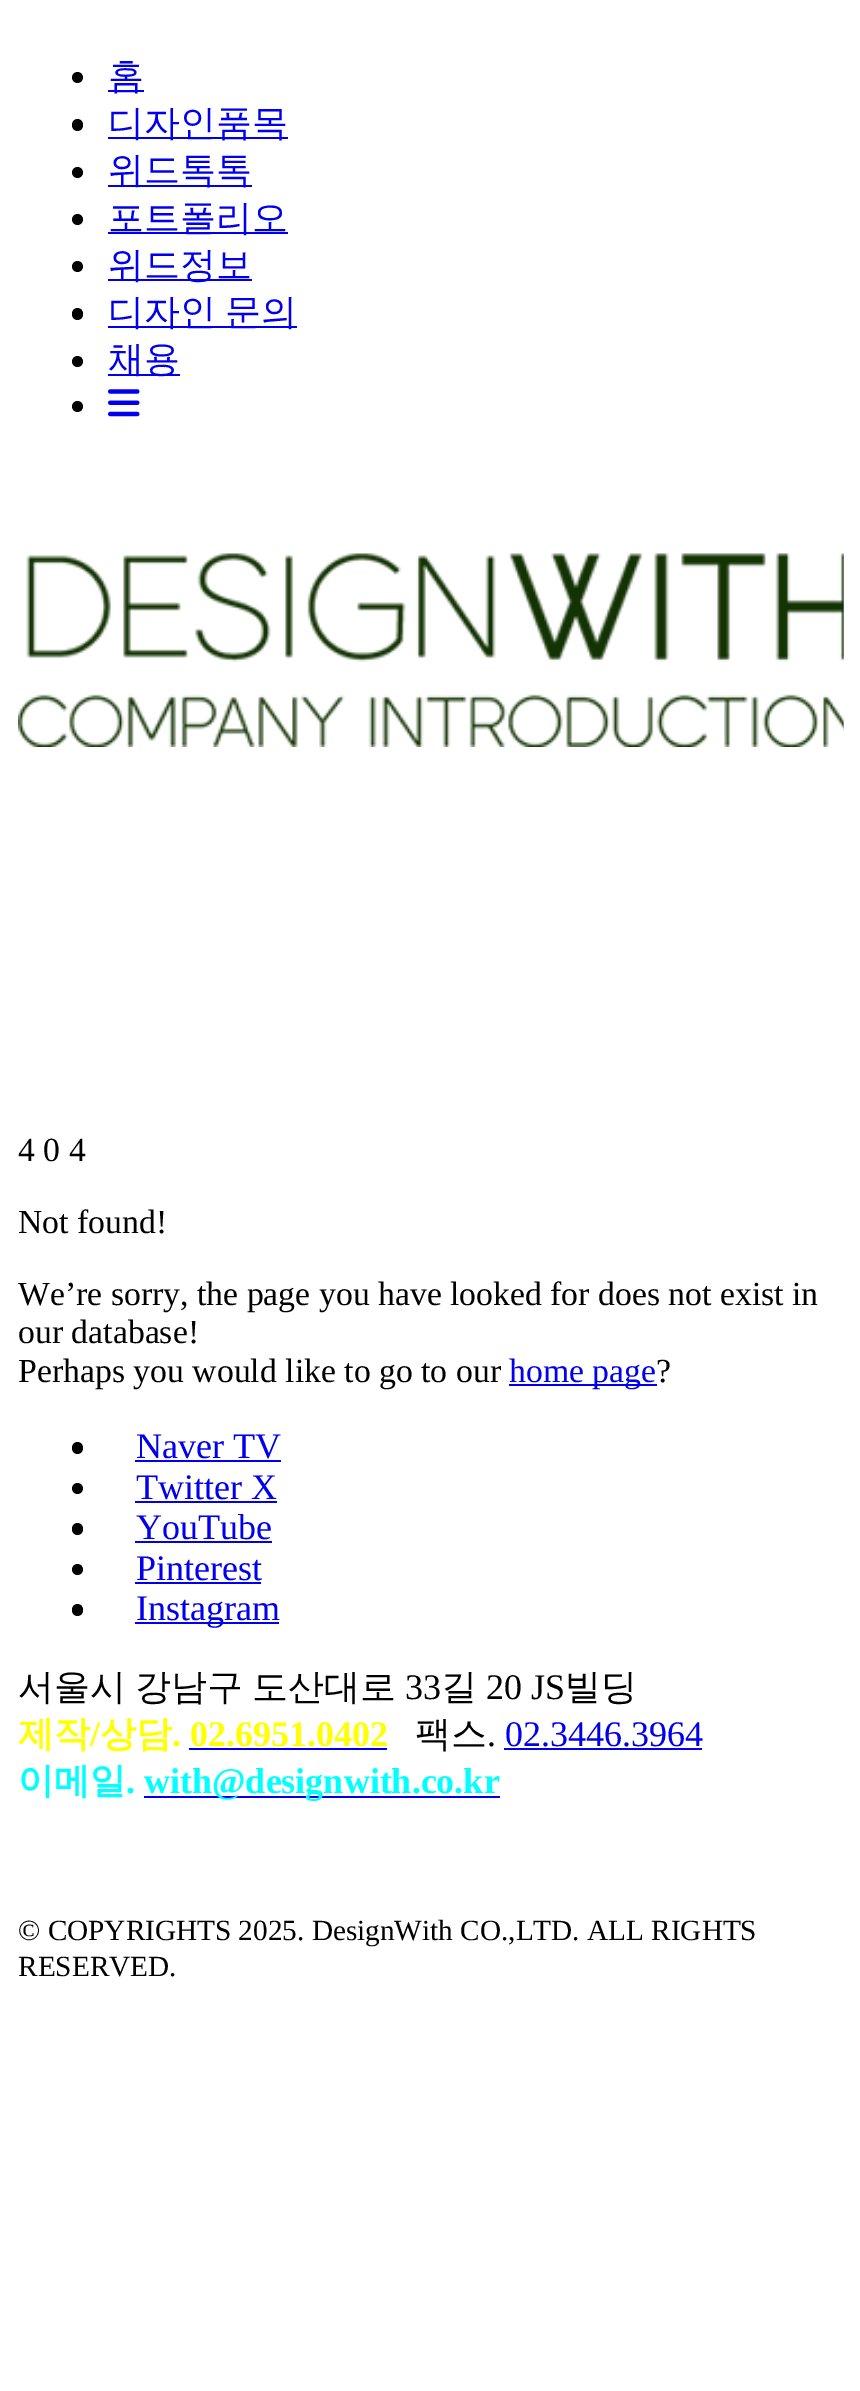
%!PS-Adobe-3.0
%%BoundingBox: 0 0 860 2391
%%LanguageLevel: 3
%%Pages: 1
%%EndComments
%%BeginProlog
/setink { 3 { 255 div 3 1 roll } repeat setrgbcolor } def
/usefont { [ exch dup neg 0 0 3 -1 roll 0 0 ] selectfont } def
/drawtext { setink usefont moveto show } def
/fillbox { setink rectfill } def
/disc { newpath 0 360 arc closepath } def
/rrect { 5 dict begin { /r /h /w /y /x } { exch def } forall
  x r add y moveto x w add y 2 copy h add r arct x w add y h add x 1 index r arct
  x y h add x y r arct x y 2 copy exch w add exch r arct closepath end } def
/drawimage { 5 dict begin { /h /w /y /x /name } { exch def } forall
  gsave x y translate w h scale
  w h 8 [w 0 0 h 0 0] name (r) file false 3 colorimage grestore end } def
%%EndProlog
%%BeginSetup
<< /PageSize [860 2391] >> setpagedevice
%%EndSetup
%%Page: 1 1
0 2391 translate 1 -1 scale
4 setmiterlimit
0 0 860 2391 255 255 255 fillbox
0 0 0 setink
77.5 77.5 5.5 disc fill
108 90 36 2 0 0 238 fillbox
(홈) 108 88 /WenQuanYiZenHei-Medium 36 0 0 238 drawtext
0 0 0 setink
72 119 11 12 5.5 rrect fill
108 137 180 2 0 0 238 fillbox
(디자인품목) 108 135 /WenQuanYiZenHei-Medium 36 0 0 238 drawtext
0 0 0 setink
77.5 172.5 5.5 disc fill
108 185 144 2 0 0 238 fillbox
(위드톡톡) 108 182 /WenQuanYiZenHei-Medium 36 0 0 238 drawtext
0 0 0 setink
77.5 219.5 5.5 disc fill
108 232 180 2 0 0 238 fillbox
(포트폴리오) 108 230 /WenQuanYiZenHei-Medium 36 0 0 238 drawtext
0 0 0 setink
77.5 266.5 5.5 disc fill
108 279 144 2 0 0 238 fillbox
(위드정보) 108 277 /WenQuanYiZenHei-Medium 36 0 0 238 drawtext
0 0 0 setink
72 308 11 12 5.5 rrect fill
108 326 189 2 0 0 238 fillbox
108 324 moveto -2 0 32 (디자인 문의) widthshow
0 0 0 setink
77.5 361.5 5.5 disc fill
108 374 72 2 0 0 238 fillbox
(채용) 108 371 /WenQuanYiZenHei-Medium 36 0 0 238 drawtext
0 0 0 setink
77.5 406.5 5.5 disc fill
(assets/img1.rgb) 108 389 32 28 drawimage
(assets/img2.rgb) 18 553 826 194 drawimage
(4 0 4) 18 1161 /LiberationSerif-Regular 33.75 0 0 0 drawtext
(Not found!) 18 1233 /LiberationSerif-Regular 33.75 0 0 0 drawtext
(We’re sorry, the page you have looked for does not exist in) 18 1305 /LiberationSerif-Regular 33.75 0 0 0 drawtext
(our database!) 18 1343 /LiberationSerif-Regular 33.75 0 0 0 drawtext
(Perhaps you would like to go to our) 18 1382 /LiberationSerif-Regular 33.75 0 0 0 drawtext
509 1384 148 2 0 0 238 fillbox
(home page) 509 1382 /LiberationSerif-Regular 33.75 0 0 238 drawtext
(?) 656 1382 /LiberationSerif-Regular 33.75 0 0 0 drawtext
72 1442 11 12 5.5 rrect fill
(Naver TV) 136 1458 /LiberationSerif-Regular 36 0 0 238 drawtext
135 1460 146 2 0 0 238 fillbox
0 0 0 setink
77.5 1488.5 5.5 disc fill
(Twitter X) 136 1499 /LiberationSerif-Regular 36 0 0 238 drawtext
135 1501 142 2 0 0 238 fillbox
0 0 0 setink
72 1523 11 12 5.5 rrect fill
(YouTube) 136 1539 /LiberationSerif-Regular 36 0 0 238 drawtext
135 1541 137 2 0 0 238 fillbox
0 0 0 setink
77.5 1569.5 5.5 disc fill
(Pinterest) 136 1580 /LiberationSerif-Regular 36 0 0 238 drawtext
135 1582 126 2 0 0 238 fillbox
0 0 0 setink
72 1604 11 12 5.5 rrect fill
135 1622 144 2 0 0 238 fillbox
(Instagram) 136 1620 /LiberationSerif-Regular 36 0 0 238 drawtext
(서울시) 18 1699 /WenQuanYiZenHei-Medium 36 0 0 0 drawtext
(강남구) 135 1699 /WenQuanYiZenHei-Medium 36 0 0 0 drawtext
(도산대로) 252 1699 /WenQuanYiZenHei-Medium 36 0 0 0 drawtext
(33) 405 1699 /LiberationSerif-Regular 36 0 0 0 drawtext
(길) 441 1699 /WenQuanYiZenHei-Medium 36 0 0 0 drawtext
(20 JS) 486 1699 /LiberationSerif-Regular 36 0 0 0 drawtext
(빌딩) 565 1699 /WenQuanYiZenHei-Medium 36 0 0 0 drawtext
(제작) 18 1746 /WenQuanYiZenHei-Bold 36 255 255 0 drawtext
(/) 90 1746 /LiberationSerif-Bold 36 255 255 0 drawtext
(상담) 100 1746 /WenQuanYiZenHei-Bold 36 255 255 0 drawtext
(. 02.6951.0402) 172 1746 /LiberationSerif-Bold 36 255 255 0 drawtext
(팩스) 415 1746 /WenQuanYiZenHei-Medium 36 0 0 0 drawtext
(.) 487 1746 /LiberationSerif-Regular 36 0 0 0 drawtext
(02.3446.3964) 505 1746 /LiberationSerif-Regular 36 0 0 238 drawtext
504 1748 198 2 0 0 238 fillbox
189 1748 198 2 0 0 238 fillbox
(이메일) 18 1793 /WenQuanYiZenHei-Bold 36 0 255 255 drawtext
(.) 126 1793 /LiberationSerif-Bold 36 0 255 255 drawtext
144 1796 356 2 0 0 238 fillbox
(with@designwith.co.kr) 144 1793 /LiberationSerif-Bold 36 0 255 255 drawtext
(© COPYRIGHTS 2025. DesignWith CO.,LTD. ALL RIGHTS) 18 1940 /LiberationSerif-Regular 29.25 0 0 0 drawtext
(RESERVED.) 18 1976 /LiberationSerif-Regular 29.25 0 0 0 drawtext
showpage
%%EOF
